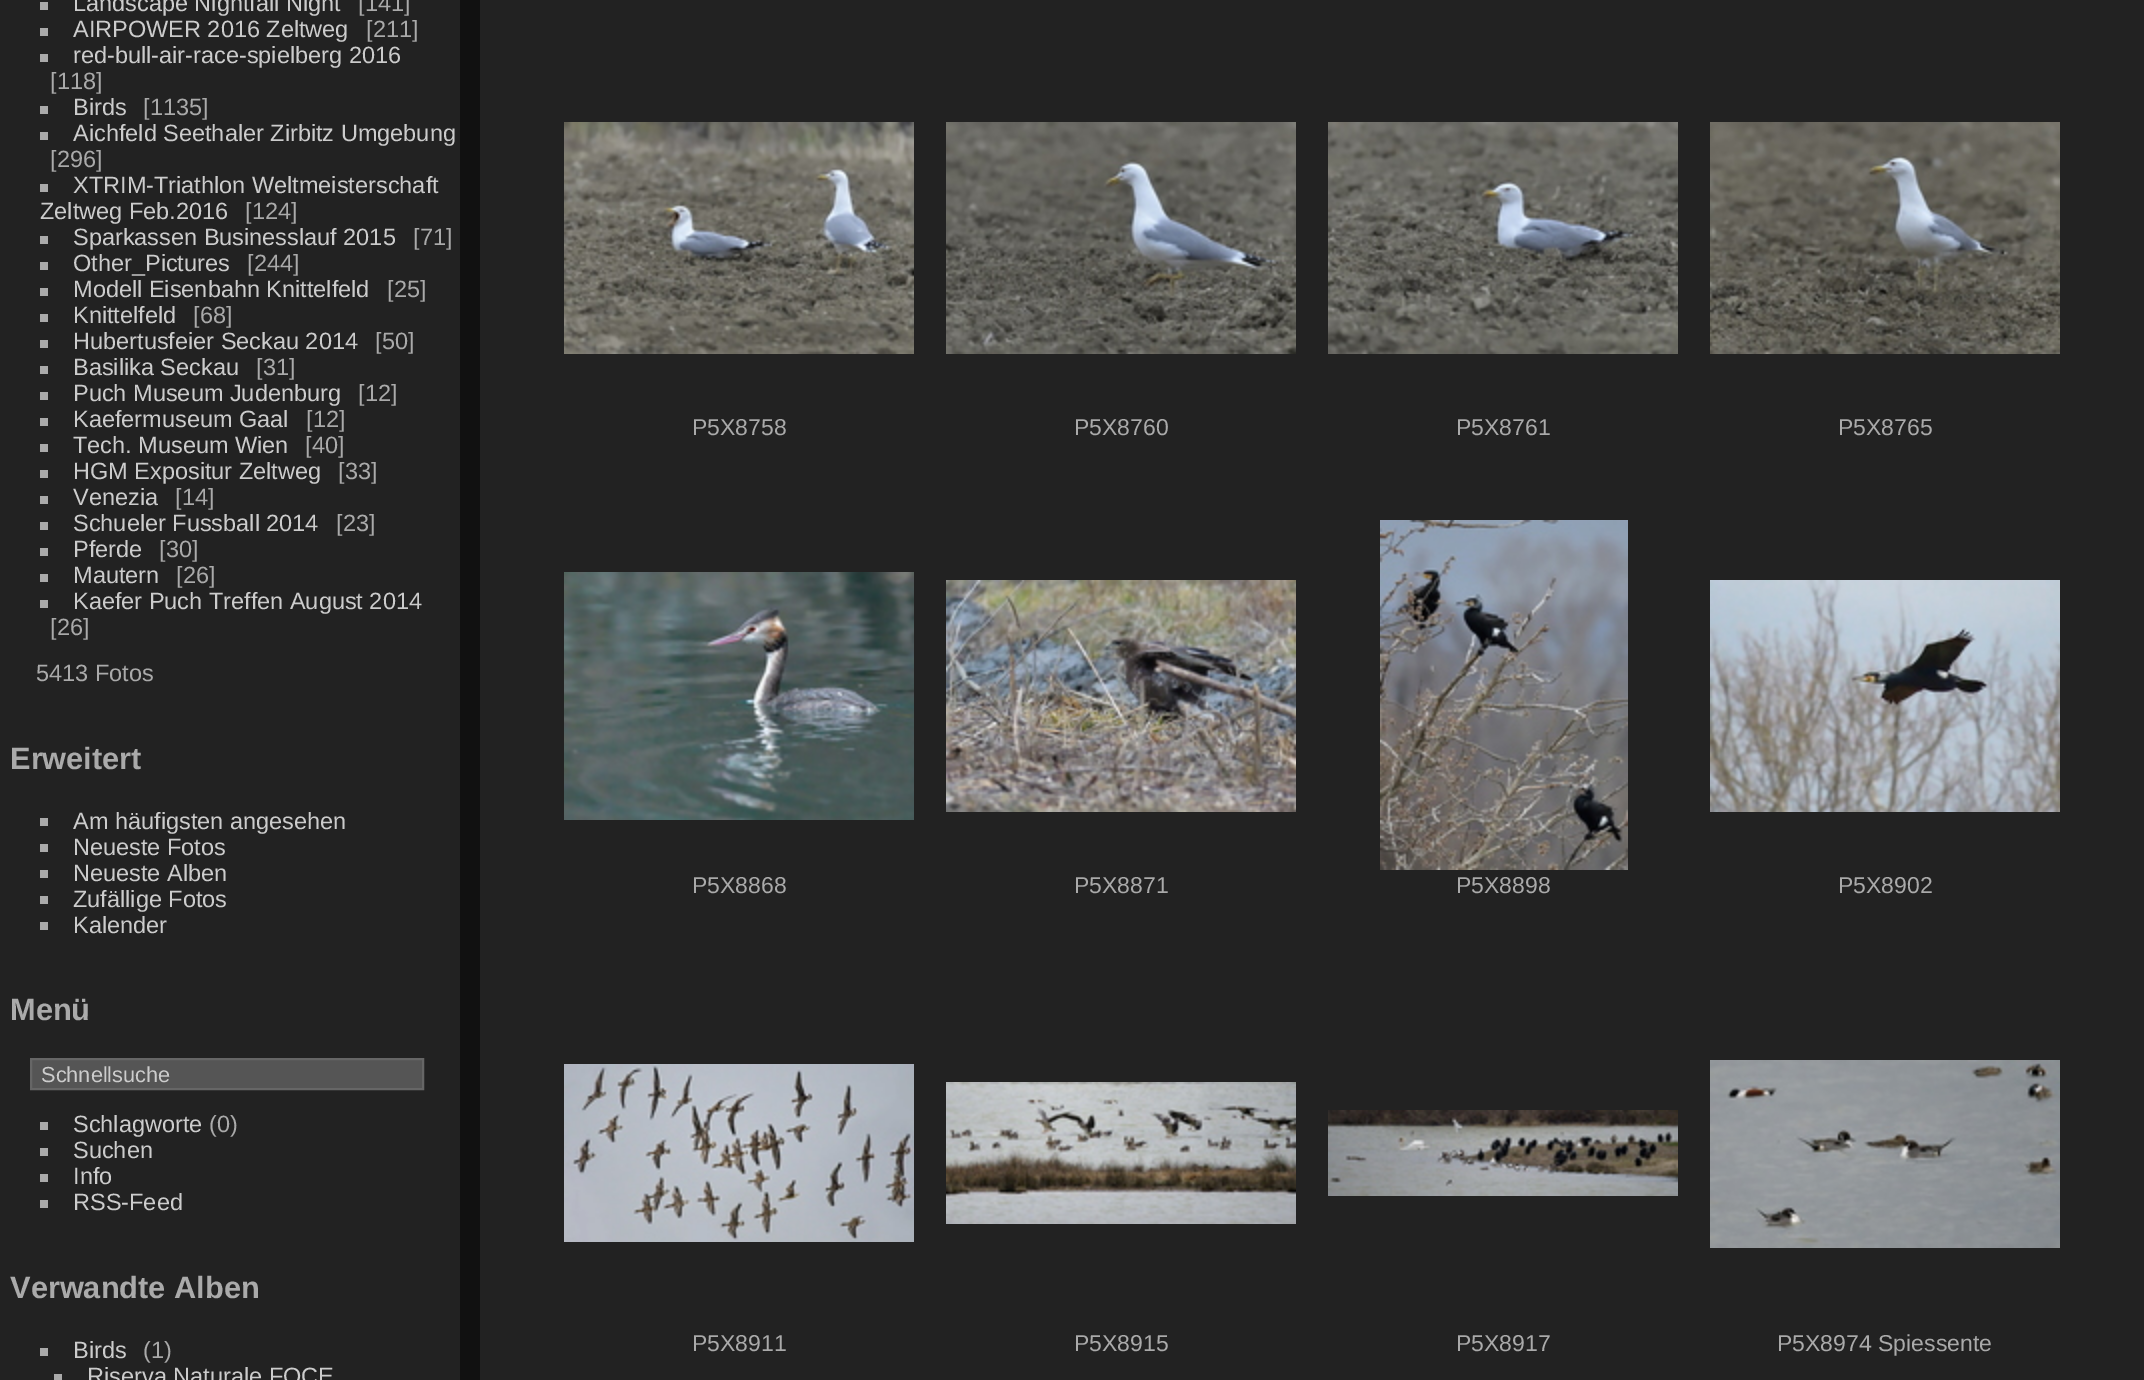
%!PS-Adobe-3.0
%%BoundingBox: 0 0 2144 1380
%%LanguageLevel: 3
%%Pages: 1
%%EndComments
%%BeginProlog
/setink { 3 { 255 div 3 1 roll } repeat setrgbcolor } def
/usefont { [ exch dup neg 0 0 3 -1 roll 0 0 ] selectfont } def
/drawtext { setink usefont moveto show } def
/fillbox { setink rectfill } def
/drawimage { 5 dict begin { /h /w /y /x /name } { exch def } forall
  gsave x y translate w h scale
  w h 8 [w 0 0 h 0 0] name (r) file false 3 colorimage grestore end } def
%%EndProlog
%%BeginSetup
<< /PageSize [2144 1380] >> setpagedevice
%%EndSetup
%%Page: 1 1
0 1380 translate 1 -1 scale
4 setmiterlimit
0 0 2144 1380 17 17 17 fillbox
0 0 460 1380 34 34 34 fillbox
40 2 8 8 170 170 170 fillbox
(Landscape Nightfall Night) 73 11 /LiberationSans-Regular 23.5 204 204 204 drawtext
([141]) 358 11 /LiberationSans-Regular 23.5 170 170 170 drawtext
40 28 8 8 170 170 170 fillbox
(AIRPOWER 2016 Zeltweg) 73 37 /LiberationSans-Regular 23.5 204 204 204 drawtext
([211]) 366 37 /LiberationSans-Regular 23.5 170 170 170 drawtext
40 54 8 8 170 170 170 fillbox
(red-bull-air-race-spielberg 2016) 73 63 /LiberationSans-Regular 23.5 204 204 204 drawtext
([118]) 50 89 /LiberationSans-Regular 23.5 170 170 170 drawtext
40 106 8 8 170 170 170 fillbox
(Birds) 73 115 /LiberationSans-Regular 23.5 204 204 204 drawtext
([1135]) 143 115 /LiberationSans-Regular 23.5 170 170 170 drawtext
40 132 8 8 170 170 170 fillbox
(Aichfeld Seethaler Zirbitz Umgebung) 73 141 /LiberationSans-Regular 23.5 204 204 204 drawtext
([296]) 50 167 /LiberationSans-Regular 23.5 170 170 170 drawtext
40 184 8 8 170 170 170 fillbox
(XTRIM-Triathlon Weltmeisterschaft) 73 193 /LiberationSans-Regular 23.5 204 204 204 drawtext
(Zeltweg Feb.2016) 40 219 /LiberationSans-Regular 23.5 204 204 204 drawtext
([124]) 245 219 /LiberationSans-Regular 23.5 170 170 170 drawtext
40 236 8 8 170 170 170 fillbox
(Sparkassen Businesslauf 2015) 73 245 /LiberationSans-Regular 23.5 204 204 204 drawtext
([71]) 413 245 /LiberationSans-Regular 23.5 170 170 170 drawtext
40 262 8 8 170 170 170 fillbox
(Other_Pictures) 73 271 /LiberationSans-Regular 23.5 204 204 204 drawtext
([244]) 247 271 /LiberationSans-Regular 23.5 170 170 170 drawtext
40 288 8 8 170 170 170 fillbox
(Modell Eisenbahn Knittelfeld) 73 297 /LiberationSans-Regular 23.5 204 204 204 drawtext
([25]) 387 297 /LiberationSans-Regular 23.5 170 170 170 drawtext
40 314 8 8 170 170 170 fillbox
(Knittelfeld) 73 323 /LiberationSans-Regular 23.5 204 204 204 drawtext
([68]) 193 323 /LiberationSans-Regular 23.5 170 170 170 drawtext
40 340 8 8 170 170 170 fillbox
(Hubertusfeier Seckau 2014) 73 349 /LiberationSans-Regular 23.5 204 204 204 drawtext
([50]) 375 349 /LiberationSans-Regular 23.5 170 170 170 drawtext
40 366 8 8 170 170 170 fillbox
(Basilika Seckau) 73 375 /LiberationSans-Regular 23.5 204 204 204 drawtext
([31]) 256 375 /LiberationSans-Regular 23.5 170 170 170 drawtext
40 392 8 8 170 170 170 fillbox
(Puch Museum Judenburg) 73 401 /LiberationSans-Regular 23.5 204 204 204 drawtext
([12]) 358 401 /LiberationSans-Regular 23.5 170 170 170 drawtext
40 418 8 8 170 170 170 fillbox
(Kaefermuseum Gaal) 73 427 /LiberationSans-Regular 23.5 204 204 204 drawtext
([12]) 306 427 /LiberationSans-Regular 23.5 170 170 170 drawtext
40 444 8 8 170 170 170 fillbox
(Tech. Museum Wien) 73 453 /LiberationSans-Regular 23.5 204 204 204 drawtext
([40]) 305 453 /LiberationSans-Regular 23.5 170 170 170 drawtext
40 470 8 8 170 170 170 fillbox
(HGM Expositur Zeltweg) 73 479 /LiberationSans-Regular 23.5 204 204 204 drawtext
([33]) 338 479 /LiberationSans-Regular 23.5 170 170 170 drawtext
40 496 8 8 170 170 170 fillbox
(Venezia) 73 505 /LiberationSans-Regular 23.5 204 204 204 drawtext
([14]) 175 505 /LiberationSans-Regular 23.5 170 170 170 drawtext
40 522 8 8 170 170 170 fillbox
(Schueler Fussball 2014) 73 531 /LiberationSans-Regular 23.5 204 204 204 drawtext
([23]) 336 531 /LiberationSans-Regular 23.5 170 170 170 drawtext
40 548 8 8 170 170 170 fillbox
(Pferde) 73 557 /LiberationSans-Regular 23.5 204 204 204 drawtext
([30]) 159 557 /LiberationSans-Regular 23.5 170 170 170 drawtext
40 574 8 8 170 170 170 fillbox
(Mautern) 73 583 /LiberationSans-Regular 23.5 204 204 204 drawtext
([26]) 176 583 /LiberationSans-Regular 23.5 170 170 170 drawtext
40 600 8 8 170 170 170 fillbox
(Kaefer Puch Treffen August 2014) 73 609 /LiberationSans-Regular 23.5 204 204 204 drawtext
([26]) 50 635 /LiberationSans-Regular 23.5 170 170 170 drawtext
(5413 Fotos) 36 681 /LiberationSans-Regular 23.5 170 170 170 drawtext
(Erweitert) 10 769 /LiberationSans-Bold 30.75 170 170 170 drawtext
40 818 8 8 170 170 170 fillbox
(Am häufigsten angesehen) 73 829 /LiberationSans-Regular 23.5 204 204 204 drawtext
40 844 8 8 170 170 170 fillbox
(Neueste Fotos) 73 855 /LiberationSans-Regular 23.5 204 204 204 drawtext
40 870 8 8 170 170 170 fillbox
(Neueste Alben) 73 881 /LiberationSans-Regular 23.5 204 204 204 drawtext
40 896 8 8 170 170 170 fillbox
(Zufällige Fotos) 73 907 /LiberationSans-Regular 23.5 204 204 204 drawtext
40 922 8 8 170 170 170 fillbox
(Kalender) 73 933 /LiberationSans-Regular 23.5 204 204 204 drawtext
(Menü) 10 1020 /LiberationSans-Bold 30.75 170 170 170 drawtext
85 85 85 setink
31 1059 moveto 423 1059 lineto 423 1089 lineto 31 1089 lineto closepath gsave fill grestore
102 102 102 setink
2 setlinewidth
stroke
(Schnellsuche) 41 1082 /LiberationSans-Regular 21.75 204 204 204 drawtext
40 1122 8 8 170 170 170 fillbox
(Schlagworte) 73 1132 /LiberationSans-Regular 23.5 204 204 204 drawtext
(\(0\)) 209 1132 /LiberationSans-Regular 23.5 170 170 170 drawtext
40 1148 8 8 170 170 170 fillbox
(Suchen) 73 1158 /LiberationSans-Regular 23.5 204 204 204 drawtext
40 1174 8 8 170 170 170 fillbox
(Info) 73 1184 /LiberationSans-Regular 23.5 204 204 204 drawtext
40 1200 8 8 170 170 170 fillbox
(RSS-Feed) 73 1210 /LiberationSans-Regular 23.5 204 204 204 drawtext
(Verwandte Alben) 10 1298 /LiberationSans-Bold 30.75 170 170 170 drawtext
40 1348 8 8 170 170 170 fillbox
(Birds) 73 1358 /LiberationSans-Regular 23.5 204 204 204 drawtext
(\(1\)) 143 1358 /LiberationSans-Regular 23.5 170 170 170 drawtext
54 1374 8 6 170 170 170 fillbox
(Riserva Naturale FOCE) 87 1384 /LiberationSans-Regular 23.5 204 204 204 drawtext
480 0 1664 1380 34 34 34 fillbox
(assets/img1.rgb) 564 122 350 232 drawimage
(P5X8758) 692 435 /LiberationSans-Regular 23 170 170 170 drawtext
(assets/img2.rgb) 946 122 350 232 drawimage
(P5X8760) 1074 435 /LiberationSans-Regular 23 170 170 170 drawtext
(assets/img3.rgb) 1328 122 350 232 drawimage
(P5X8761) 1456 435 /LiberationSans-Regular 23 170 170 170 drawtext
(assets/img4.rgb) 1710 122 350 232 drawimage
(P5X8765) 1838 435 /LiberationSans-Regular 23 170 170 170 drawtext
(assets/img5.rgb) 564 572 350 248 drawimage
(P5X8868) 692 893 /LiberationSans-Regular 23 170 170 170 drawtext
(assets/img6.rgb) 946 580 350 232 drawimage
(P5X8871) 1074 893 /LiberationSans-Regular 23 170 170 170 drawtext
(assets/img7.rgb) 1380 520 248 350 drawimage
(P5X8898) 1456 893 /LiberationSans-Regular 23 170 170 170 drawtext
(assets/img8.rgb) 1710 580 350 232 drawimage
(P5X8902) 1838 893 /LiberationSans-Regular 23 170 170 170 drawtext
(assets/img9.rgb) 564 1064 350 178 drawimage
(P5X8911) 692 1351 /LiberationSans-Regular 23 170 170 170 drawtext
(assets/img10.rgb) 946 1082 350 142 drawimage
(P5X8915) 1074 1351 /LiberationSans-Regular 23 170 170 170 drawtext
(assets/img11.rgb) 1328 1110 350 86 drawimage
(P5X8917) 1456 1351 /LiberationSans-Regular 23 170 170 170 drawtext
(assets/img12.rgb) 1710 1060 350 188 drawimage
(P5X8974 Spiessente) 1777 1351 /LiberationSans-Regular 23 170 170 170 drawtext
showpage
%%EOF
